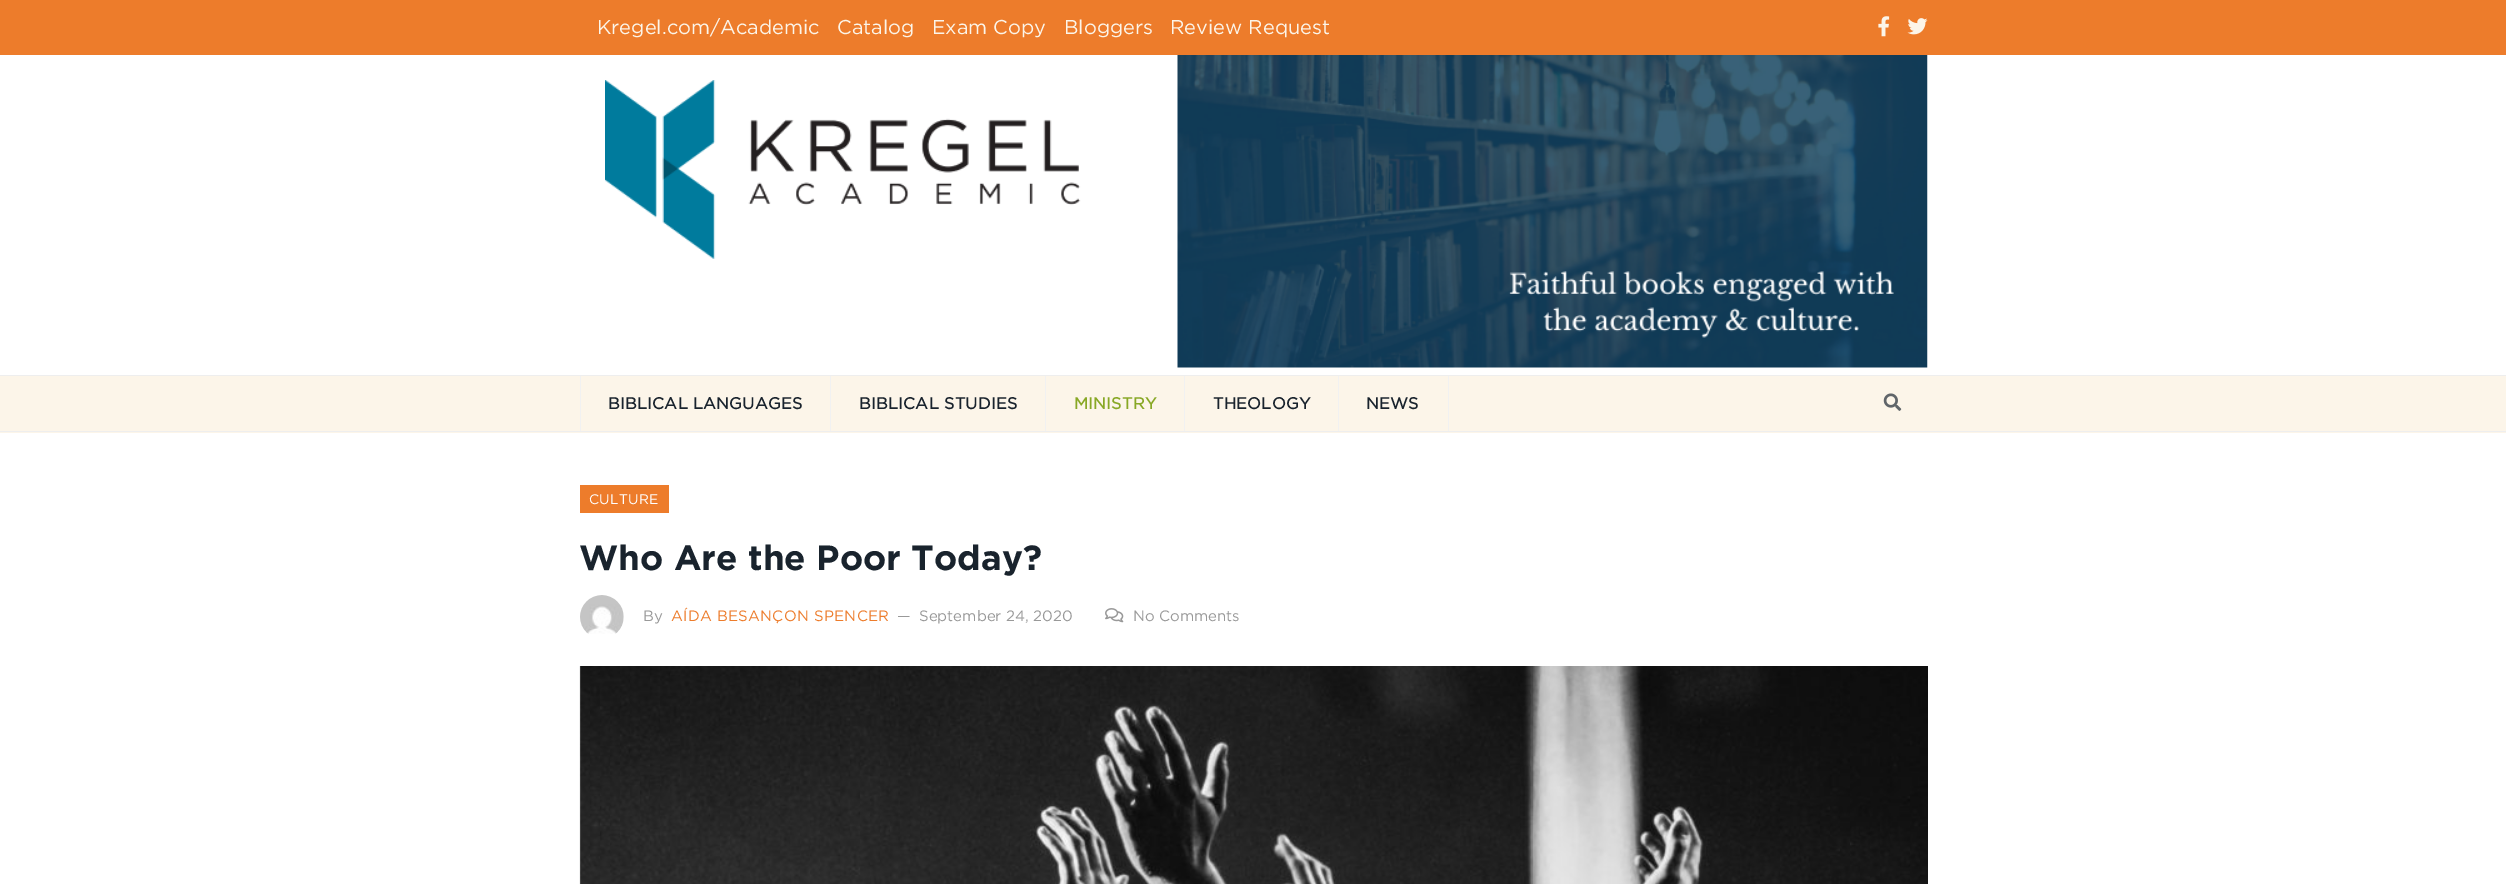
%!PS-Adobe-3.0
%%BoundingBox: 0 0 2506 884
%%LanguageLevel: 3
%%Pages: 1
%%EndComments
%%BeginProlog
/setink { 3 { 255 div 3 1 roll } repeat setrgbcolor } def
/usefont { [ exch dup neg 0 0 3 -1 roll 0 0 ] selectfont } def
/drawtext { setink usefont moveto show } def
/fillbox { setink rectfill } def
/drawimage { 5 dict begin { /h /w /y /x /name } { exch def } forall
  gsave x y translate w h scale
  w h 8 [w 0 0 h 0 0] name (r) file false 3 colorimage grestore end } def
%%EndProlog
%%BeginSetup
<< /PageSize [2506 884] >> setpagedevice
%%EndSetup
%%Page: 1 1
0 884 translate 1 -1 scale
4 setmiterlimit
0 0 2506 884 255 255 255 fillbox
0 0 2506 55 237 124 43 fillbox
(Kregel.com/Academic) 597 34 /Gotham-Regular 20 252 245 233 drawtext
(Catalog) 837 34 /Gotham-Regular 20 252 245 233 drawtext
(Exam Copy) 932 34 /Gotham-Regular 20 252 245 233 drawtext
(Bloggers) 1064 34 /Gotham-Regular 20 252 245 233 drawtext
(Review Request) 1170 34 /Gotham-Regular 20 252 245 233 drawtext
(assets/img1.rgb) 1878 16 12 21 drawimage
(assets/img2.rgb) 1907 18 21 17 drawimage
(assets/img3.rgb) 605 80 476 179 drawimage
(assets/img4.rgb) 1177 55 751 313 drawimage
0 376 2506 57 252 245 233 fillbox
0 375 2506 1 238 238 238 fillbox
0 431 2506 1 238 238 238 fillbox
830 376 1 55 241 241 241 fillbox
580 376 1 55 241 241 241 fillbox
/Gotham-Bold 16.25 usefont
25 35 45 setink
608 409 moveto 0.25 0 (BIBLICAL LANGUAGES) ashow
1045 376 1 55 241 241 241 fillbox
25 35 45 setink
859 409 moveto 0.25 0 (BIBLICAL STUDIES) ashow
1184 376 1 55 241 241 241 fillbox
136 168 37 setink
1074 409 moveto 0.25 0 (MINISTRY) ashow
1338 376 1 55 241 241 241 fillbox
25 35 45 setink
1213 409 moveto 0.25 0 (THEOLOGY) ashow
1448 376 1 55 241 241 241 fillbox
25 35 45 setink
1366 409 moveto 0.25 0 (NEWS) ashow
(assets/img5.rgb) 1883 393 19 18 drawimage
580 485 89 28 237 124 43 fillbox
/Gotham-Regular 13.75 usefont
255 255 255 setink
589 504 moveto 0.25 0 (CULTURE) ashow
(Who Are the Poor Today?) 579 570 /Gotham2-Bold 35 25 35 45 drawtext
(assets/img6.rgb) 580 595 44 39 drawimage
(By) 643 621 /Gotham-Regular 15 153 153 153 drawtext
237 124 43 setink
671 621 moveto 0.3 0 (AÍDA BESANÇON SPENCER) ashow
(—) 897 621 /Gotham-Regular 15 153 153 153 drawtext
(September 24, 2020) 919 621 /Gotham-Regular 15 153 153 153 drawtext
(assets/img7.rgb) 1105 608 19 15 drawimage
(No Comments) 1133 621 /Gotham-Regular 15 153 153 153 drawtext
(assets/img8.rgb) 579 666 1349 218 drawimage
showpage
%%EOF
